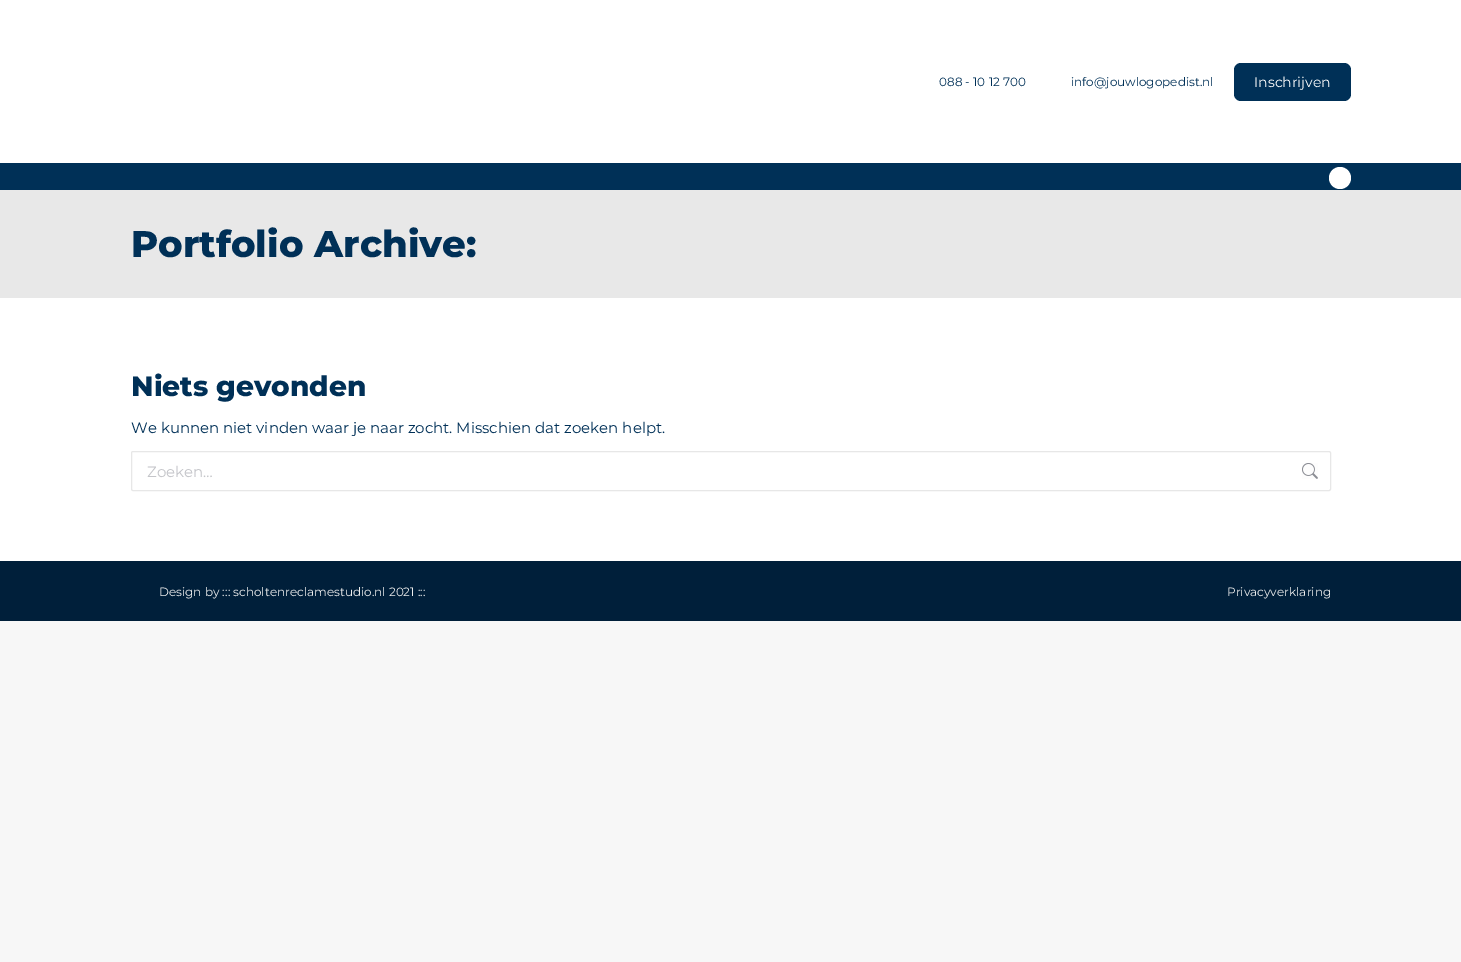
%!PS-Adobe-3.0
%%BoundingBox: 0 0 1461 962
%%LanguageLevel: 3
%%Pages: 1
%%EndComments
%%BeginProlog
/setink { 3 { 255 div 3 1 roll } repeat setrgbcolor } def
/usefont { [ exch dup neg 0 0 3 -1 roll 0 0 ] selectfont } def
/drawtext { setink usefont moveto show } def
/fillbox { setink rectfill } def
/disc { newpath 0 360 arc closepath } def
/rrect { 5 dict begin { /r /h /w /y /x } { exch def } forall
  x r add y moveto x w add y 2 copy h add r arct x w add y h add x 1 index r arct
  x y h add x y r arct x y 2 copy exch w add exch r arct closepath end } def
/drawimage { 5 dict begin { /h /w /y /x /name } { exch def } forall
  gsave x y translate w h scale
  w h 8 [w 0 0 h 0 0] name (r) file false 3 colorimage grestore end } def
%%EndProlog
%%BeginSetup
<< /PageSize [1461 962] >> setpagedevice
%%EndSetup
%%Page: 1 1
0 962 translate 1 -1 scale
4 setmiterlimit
0 0 1461 962 247 247 247 fillbox
0 0 1461 561 255 255 255 fillbox
(088 - 10 12 700) 939 86 /Montserrat-Regular 12 0 48 87 drawtext
(info@jouwlogopedist.nl) 1071 86 /Montserrat-Regular 12 0 48 87 drawtext
1234 63 117 38 7 rrect fill
(Inschrijven) 1254 87 /Montserrat-Regular 14 255 255 255 drawtext
0 163 1461 27 0 48 87 fillbox
255 255 255 setink
1340 178 11 disc fill
0 190 1461 108 232 232 232 fillbox
(Portfolio Archive:) 131 257 /Montserrat-ExtraBold 37 0 48 87 drawtext
(Niets gevonden) 131 396 /Montserrat-ExtraBold 28 0 48 87 drawtext
(We kunnen niet vinden waar je naar zocht. Misschien dat zoeken helpt.) 131 433 /Montserrat-Regular 15 0 48 87 drawtext
231 231 231 setink
131.5 451.5 1199 39 1.5 rrect stroke
(Zoeken…) 147 477 /Montserrat-Regular 15 196 197 201 drawtext
(assets/img1.rgb) 1302 463 16 16 drawimage
0 561 1461 60 0 31 58 fillbox
(Design by ::: scholtenreclamestudio.nl 2021 :::) 159 596 /Montserrat-Regular 12 238 238 238 drawtext
(Privacyverklaring) 1227 596 /Montserrat-Regular 12 238 238 238 drawtext
showpage
%%EOF
